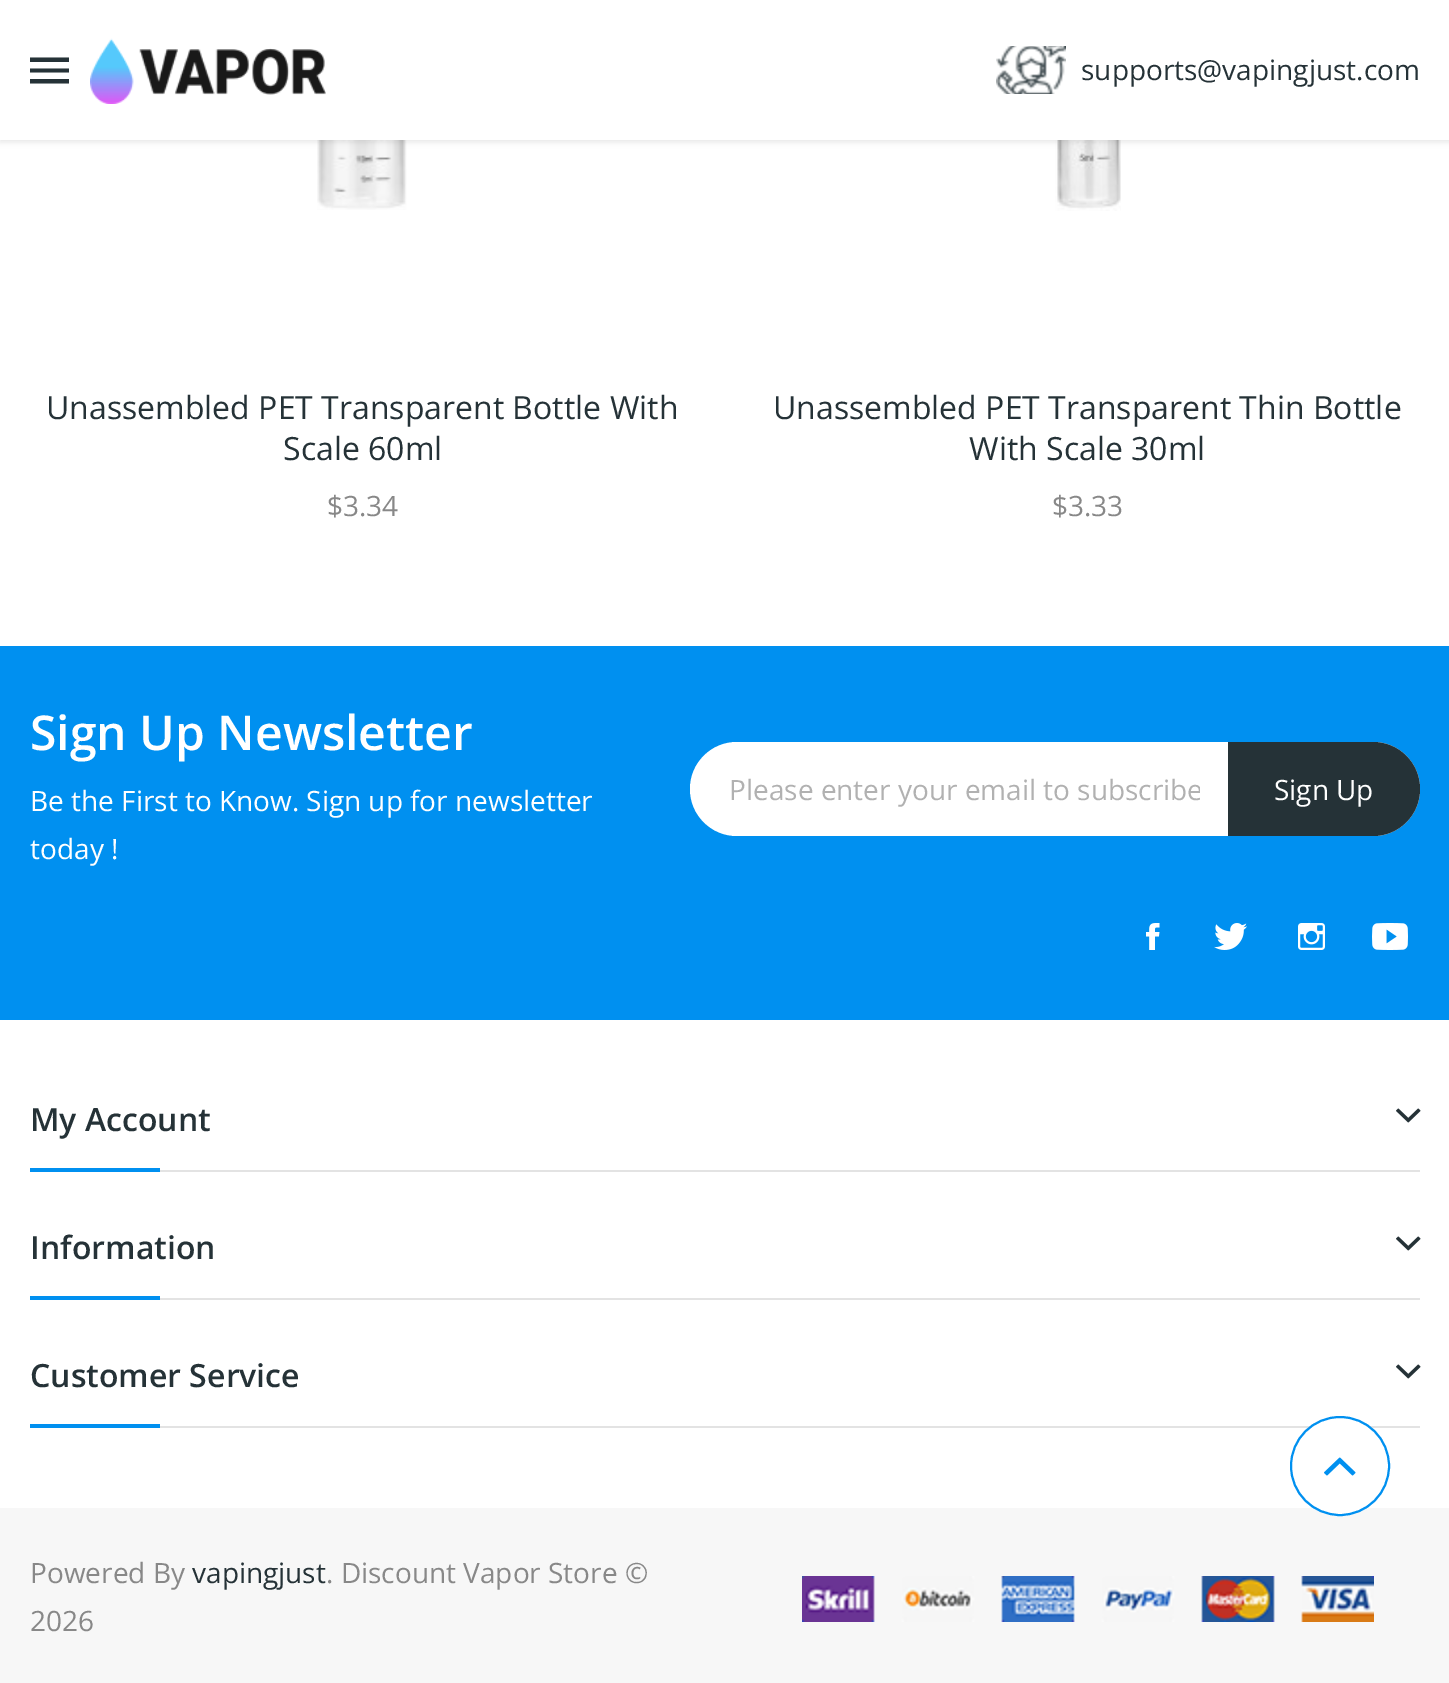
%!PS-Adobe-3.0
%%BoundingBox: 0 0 1449 1683
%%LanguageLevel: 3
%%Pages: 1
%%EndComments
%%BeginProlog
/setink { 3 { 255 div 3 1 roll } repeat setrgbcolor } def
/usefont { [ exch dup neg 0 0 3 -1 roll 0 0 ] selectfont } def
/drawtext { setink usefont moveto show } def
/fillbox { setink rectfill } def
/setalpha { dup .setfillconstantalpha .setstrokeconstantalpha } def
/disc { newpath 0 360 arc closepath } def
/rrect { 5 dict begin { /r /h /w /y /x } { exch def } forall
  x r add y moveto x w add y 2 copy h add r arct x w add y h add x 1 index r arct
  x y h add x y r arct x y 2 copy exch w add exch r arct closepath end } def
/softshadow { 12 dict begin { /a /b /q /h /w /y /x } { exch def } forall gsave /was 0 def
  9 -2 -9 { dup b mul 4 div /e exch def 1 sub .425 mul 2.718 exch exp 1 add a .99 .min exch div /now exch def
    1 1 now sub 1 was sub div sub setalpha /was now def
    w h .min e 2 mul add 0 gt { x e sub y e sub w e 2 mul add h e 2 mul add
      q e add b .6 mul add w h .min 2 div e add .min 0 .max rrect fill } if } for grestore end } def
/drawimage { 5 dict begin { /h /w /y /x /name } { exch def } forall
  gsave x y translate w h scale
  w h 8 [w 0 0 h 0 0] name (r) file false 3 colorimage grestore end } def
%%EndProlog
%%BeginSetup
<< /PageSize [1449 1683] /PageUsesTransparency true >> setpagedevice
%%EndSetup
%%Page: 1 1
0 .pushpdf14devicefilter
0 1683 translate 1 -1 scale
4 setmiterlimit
0 0 1449 1683 255 255 255 fillbox
(assets/img3.rgb) 317 140 90 70 drawimage
(assets/img4.rgb) 1055 140 66 71 drawimage
0 0 0 setink
0 2 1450 140 0 3 0.1 softshadow
0 0 1449 140 255 255 255 fillbox
37 50 55 setink
30 83.5 moveto 30 79 lineto 69 79 lineto 69 83.5 lineto closepath 30 72.5 moveto 30 68.5 lineto 69 68.5 lineto 69 72.5 lineto closepath 30 57.5 moveto 69 57.5 lineto 69 62 lineto 30 62 lineto closepath fill
(assets/img1.rgb) 90 38 236 66 drawimage
(assets/img2.rgb) 996 46 70 48 drawimage
(supports@vapingjust.com) 1081 80 /OpenSans-Regular 28 37 50 55 drawtext
(Unassembled PET Transparent Bottle With) 46 419 /OpenSans-Regular 32 37 50 55 drawtext
(Scale 60ml) 283 460 /OpenSans-Regular 32 37 50 55 drawtext
($3.34) 327 516 /OpenSans-Regular 28 136 136 136 drawtext
(Unassembled PET Transparent Thin Bottle) 773 419 /OpenSans-Regular 32 37 50 55 drawtext
(With Scale 30ml) 969 460 /OpenSans-Regular 32 37 50 55 drawtext
($3.33) 1052 516 /OpenSans-Regular 28 136 136 136 drawtext
0 646 1449 374 0 144 240 fillbox
(Sign Up Newsletter) 30 750 /OpenSans-SemiBold 48 255 255 255 drawtext
(Be the First to Know. Sign up for newsletter) 30 811 /OpenSans-Regular 28 255 255 255 drawtext
(today !) 30 859 /OpenSans-Regular 28 255 255 255 drawtext
690 742 730 94 47 rrect fill
gsave
730 770 470 38 rectclip
(Please enter your email to subscribe) 729 800 /OpenSans-Regular 28 177 177 177 drawtext
grestore
37 50 55 setink
1228 742 moveto 1373 742 lineto 1399 742 1420 763 1420 789 curveto 1420 815 1399 836 1373 836 curveto 1228 836 lineto closepath fill
(Sign Up) 1274 800 /OpenSans-Regular 28 255 255 255 drawtext
(assets/img5.rgb) 1146 923 14 27 drawimage
(assets/img6.rgb) 1214 923 33 27 drawimage
(assets/img7.rgb) 1298 923 27 27 drawimage
(assets/img8.rgb) 1372 923 36 27 drawimage
160 1170 1260 2 227 227 227 fillbox
(My Account) 30 1131 /OpenSans-SemiBold 32 37 50 55 drawtext
(assets/img9.rgb) 1396 1108 25 15 drawimage
30 1168 130 4 0 144 240 fillbox
160 1298 1260 2 227 227 227 fillbox
(Information) 30 1259 /OpenSans-SemiBold 32 37 50 55 drawtext
(assets/img9.rgb) 1396 1236 25 15 drawimage
30 1296 130 4 0 144 240 fillbox
160 1426 1260 2 227 227 227 fillbox
(Customer Service) 30 1387 /OpenSans-SemiBold 32 37 50 55 drawtext
(assets/img9.rgb) 1396 1364 25 15 drawimage
30 1424 130 4 0 144 240 fillbox
0 1508 1449 175 247 247 247 fillbox
255 255 255 setink
1340 1466 49 disc gsave fill grestore
0 144 240 setink
2 setlinewidth
stroke
(assets/img10.rgb) 1324 1457 32 19 drawimage
(Powered By) 30 1583 /OpenSans-Regular 28 136 136 136 drawtext
(vapingjust) 192 1583 /OpenSans-Regular 28 37 50 55 drawtext
(. Discount Vapor Store ©) 326 1583 /OpenSans-Regular 28 136 136 136 drawtext
(2026) 30 1631 /OpenSans-Regular 28 136 136 136 drawtext
(assets/img11.rgb) 802 1576 572 46 drawimage
.poppdf14devicefilter showpage
%%EOF
